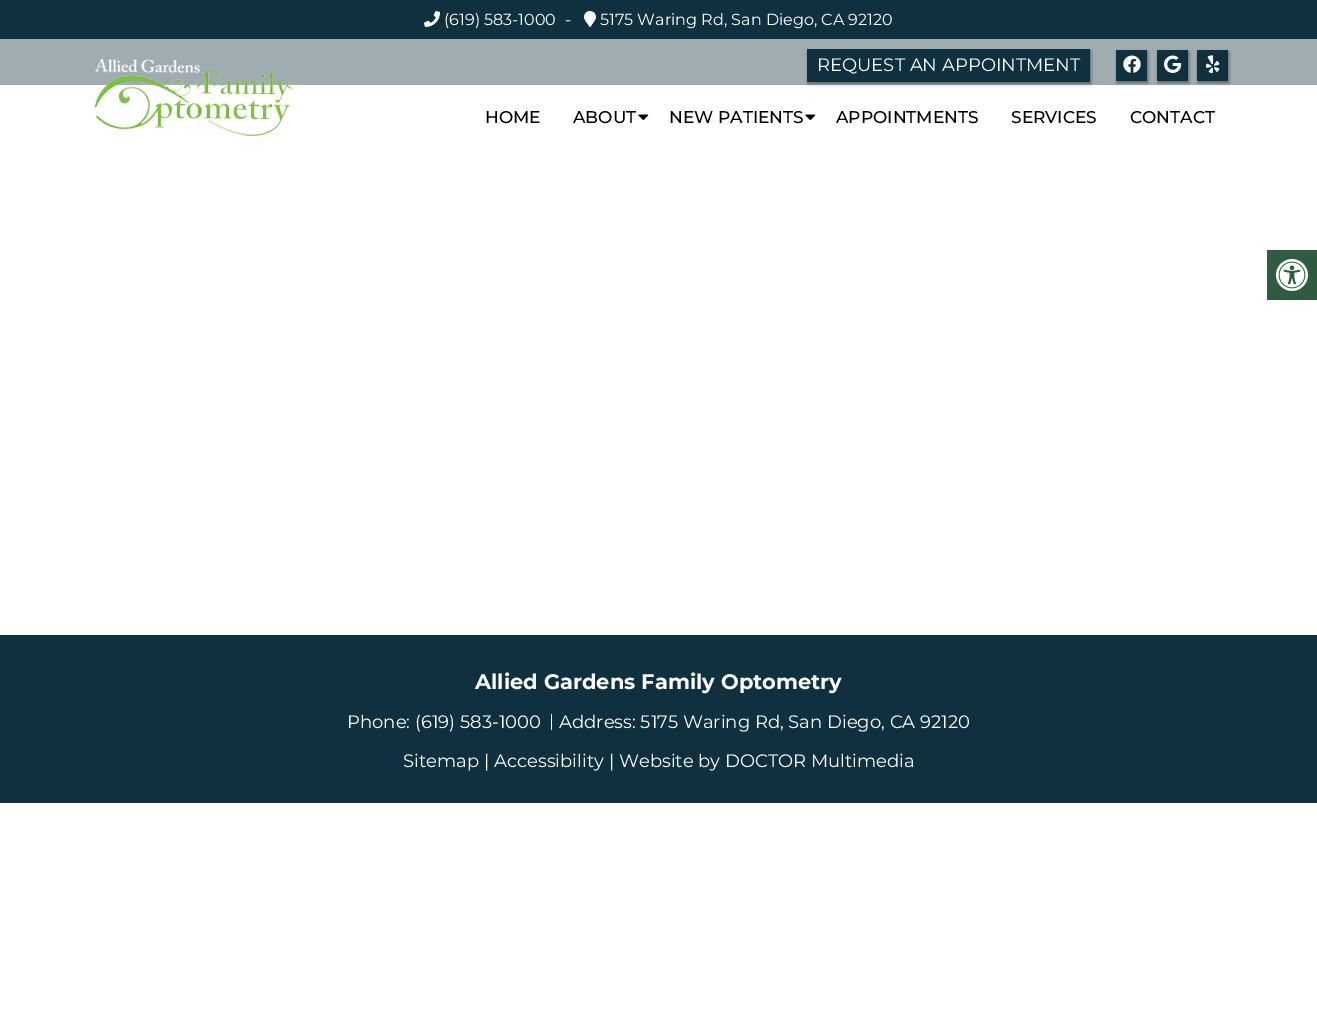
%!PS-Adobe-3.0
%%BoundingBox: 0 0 1317 1019
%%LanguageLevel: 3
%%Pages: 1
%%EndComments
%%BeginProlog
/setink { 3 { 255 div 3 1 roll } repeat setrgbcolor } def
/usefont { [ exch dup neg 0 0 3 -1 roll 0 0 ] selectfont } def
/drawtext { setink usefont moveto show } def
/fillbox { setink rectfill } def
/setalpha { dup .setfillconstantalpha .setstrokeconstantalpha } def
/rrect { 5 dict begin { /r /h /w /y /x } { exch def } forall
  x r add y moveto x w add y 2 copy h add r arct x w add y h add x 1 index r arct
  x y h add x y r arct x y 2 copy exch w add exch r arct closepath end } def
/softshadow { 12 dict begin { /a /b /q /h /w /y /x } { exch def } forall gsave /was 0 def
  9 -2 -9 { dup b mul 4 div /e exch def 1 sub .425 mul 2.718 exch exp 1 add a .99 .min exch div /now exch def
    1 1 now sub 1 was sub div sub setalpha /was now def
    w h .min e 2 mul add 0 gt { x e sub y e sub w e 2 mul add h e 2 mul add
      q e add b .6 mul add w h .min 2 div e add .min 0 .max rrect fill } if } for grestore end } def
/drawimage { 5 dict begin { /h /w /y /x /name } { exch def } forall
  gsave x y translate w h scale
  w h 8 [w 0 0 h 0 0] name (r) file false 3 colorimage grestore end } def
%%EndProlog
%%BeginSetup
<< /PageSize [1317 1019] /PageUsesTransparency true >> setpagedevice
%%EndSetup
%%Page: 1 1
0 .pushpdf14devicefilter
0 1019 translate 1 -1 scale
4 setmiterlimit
0 0 1317 1019 255 255 255 fillbox
0 0 1317 39 15 48 63 fillbox
(assets/img1.rgb) 424 11 16 16 drawimage
(\(619\) 583-1000) 444 25 /Montserrat-Regular 16 255 255 255 drawtext
(-) 565 25 /Montserrat-Regular 16 255 255 255 drawtext
(assets/img2.rgb) 584 11 12 16 drawimage
(5175 Waring Rd, San Diego, CA 92120) 600 25 /Montserrat-Regular 16 255 255 255 drawtext
0 39 1317 46 159 172 178 fillbox
(assets/img3.rgb) 94 58 204 78 drawimage
0 0 0 setink
808 51 283 33 0 1.5 0.41 softshadow
807 49 283 33 15 48 63 fillbox
(REQUEST AN APPOINTMENT) 817 71 /Montserrat-Regular 18 255 255 255 drawtext
0 0 0 setink
1117 52 31 31 0 1.5 0.41 softshadow
1116 50 31 31 15 48 63 fillbox
(assets/img4.rgb) 1123 55 18 18 drawimage
0 0 0 setink
1158 52 31 31 0 1.5 0.41 softshadow
1157 50 31 31 15 48 63 fillbox
(assets/img5.rgb) 1164 55 18 18 drawimage
0 0 0 setink
1198 52 31 31 0 1.5 0.41 softshadow
1197 50 31 31 15 48 63 fillbox
(assets/img6.rgb) 1206 55 14 19 drawimage
(HOME) 485 123 /Montserrat-Medium 17 0 0 0 drawtext
(ABOUT) 573 123 /Montserrat-Medium 17 0 0 0 drawtext
(assets/img7.rgb) 638 114 11 7 drawimage
(NEW PATIENTS) 669 123 /Montserrat-Medium 17 0 0 0 drawtext
(assets/img7.rgb) 805 114 11 7 drawimage
(APPOINTMENTS) 836 123 /Montserrat-Medium 17 0 0 0 drawtext
(SERVICES) 1011 123 /Montserrat-Medium 17 0 0 0 drawtext
(CONTACT) 1130 123 /Montserrat-Medium 17 0 0 0 drawtext
0 635 1317 168 15 48 63 fillbox
(Allied Gardens Family Optometry) 475 689 /Montserrat-Bold 21 255 255 255 drawtext
(Phone: \(619\) 583-1000) 347 728 /Montserrat-Regular 18 255 255 255 drawtext
551 714 1 16 255 255 255 fillbox
(Address: 5175 Waring Rd, San Diego, CA 92120) 559 728 /Montserrat-Regular 18 255 255 255 drawtext
(Sitemap | Accessibility | Website by DOCTOR Multimedia) 403 767 /Montserrat-Regular 18 255 255 255 drawtext
1267 250 50 50 47 92 64 fillbox
(assets/img8.rgb) 1276 259 32 32 drawimage
.poppdf14devicefilter showpage
%%EOF
